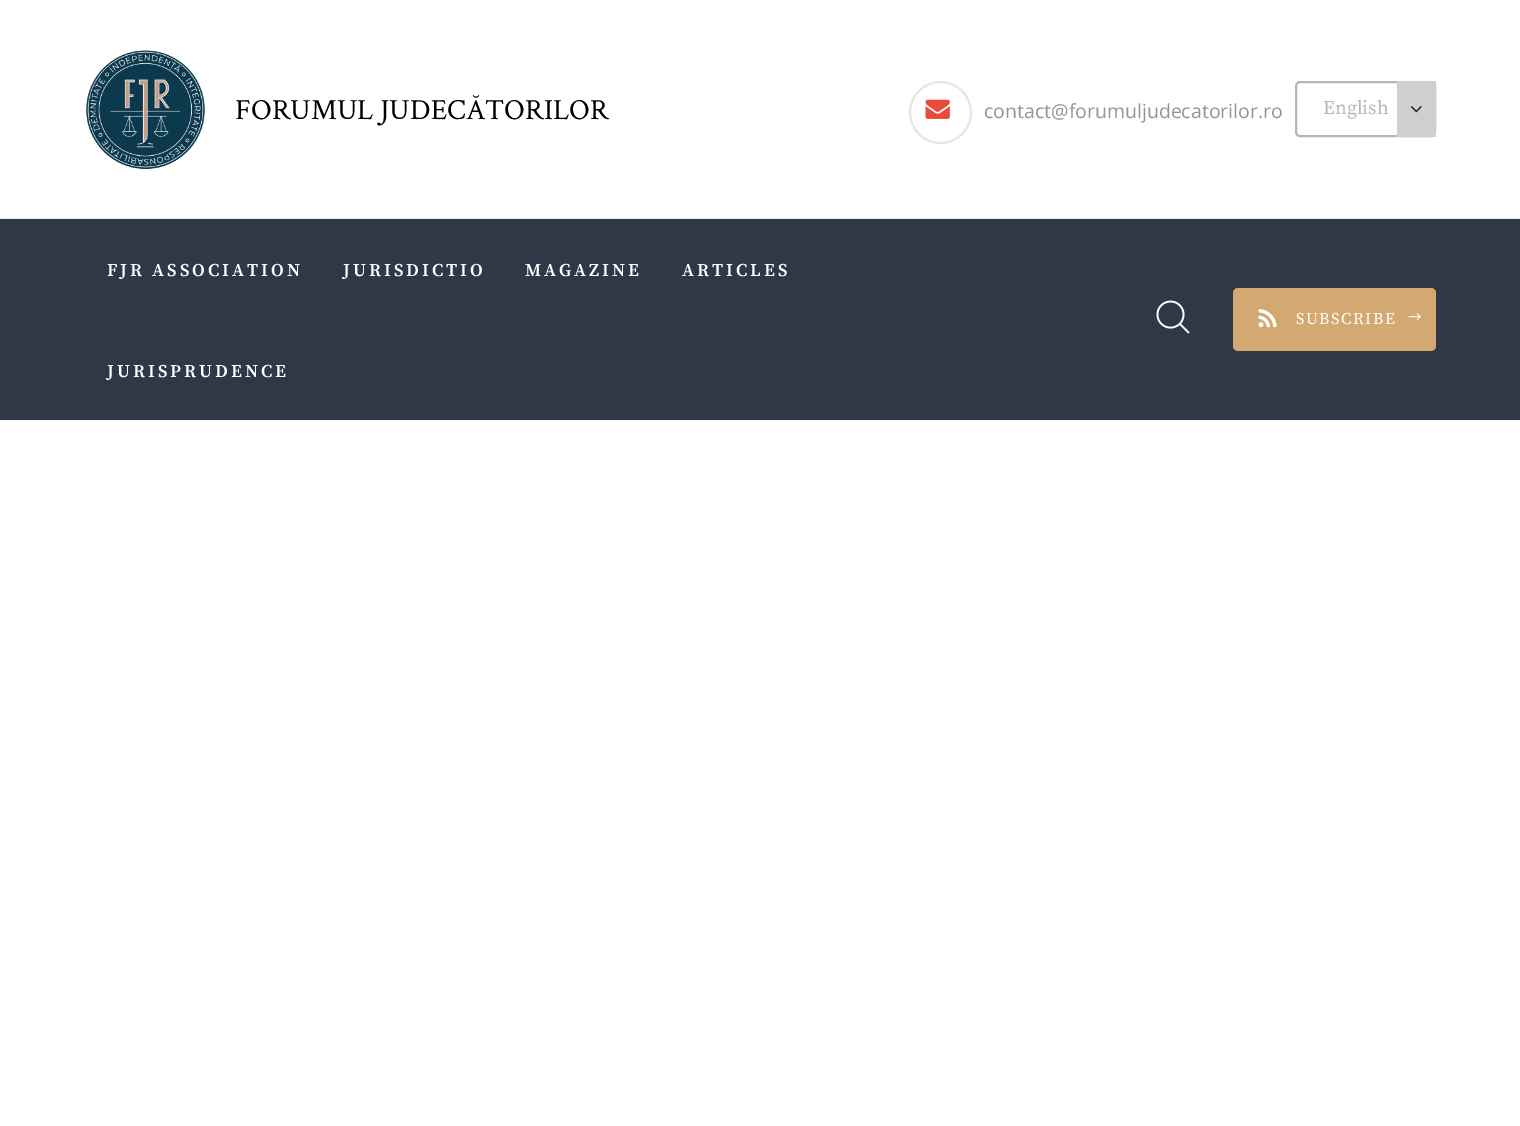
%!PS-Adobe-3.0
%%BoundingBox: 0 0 1520 1126
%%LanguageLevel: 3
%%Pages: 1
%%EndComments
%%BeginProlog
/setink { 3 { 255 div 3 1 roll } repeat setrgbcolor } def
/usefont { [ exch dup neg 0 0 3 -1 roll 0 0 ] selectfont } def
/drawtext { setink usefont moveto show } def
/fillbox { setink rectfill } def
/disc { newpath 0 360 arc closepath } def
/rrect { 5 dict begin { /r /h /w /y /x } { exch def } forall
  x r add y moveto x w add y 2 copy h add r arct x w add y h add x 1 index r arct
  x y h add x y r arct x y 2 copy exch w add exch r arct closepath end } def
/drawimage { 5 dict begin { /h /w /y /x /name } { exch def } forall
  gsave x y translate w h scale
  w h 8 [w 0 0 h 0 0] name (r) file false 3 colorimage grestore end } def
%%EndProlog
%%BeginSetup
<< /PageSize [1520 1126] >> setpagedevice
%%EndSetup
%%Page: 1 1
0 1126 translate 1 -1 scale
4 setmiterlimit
0 0 1520 1126 255 255 255 fillbox
0 218 1520 1 237 237 237 fillbox
(assets/img1.rgb) 86 50 119 120 drawimage
(FORUMUL JUDECĂTORILOR) 235 119 /CrimsonText-Regular 29.25 0 0 0 drawtext
(assets/img2.rgb) 925 99 25 20 drawimage
230 230 230 setink
2 setlinewidth
940.5 112.5 30.5 disc stroke
(contact@forumuljudecatorilor.ro) 984 118 /OpenSans-Regular 19.5 148 148 148 drawtext
183 183 183 setink
1296 82 139 54 4 rrect stroke
(English) 1323 114 /SourceSerifPro-Regular 19.5 183 183 183 drawtext
1397 81 39 56 207 207 207 fillbox
(assets/img3.rgb) 1410 106 12 7 drawimage
0 219 1520 201 48 55 71 fillbox
/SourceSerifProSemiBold-SemiBold 18 usefont
255 255 255 setink
107 276 moveto 3 0 (FJR ASSOCIATION) ashow
343 276 moveto 3 0 (JURISDICTIO) ashow
525 276 moveto 3 0 (MAGAZINE) ashow
682 276 moveto 3 0 (ARTICLES) ashow
107 377 moveto 3 0 (JURISPRUDENCE) ashow
(assets/img4.rgb) 1156 300 34 34 drawimage
212 169 113 setink
1233 288 203 63 5 rrect fill
(assets/img5.rgb) 1258 309 19 19 drawimage
/SourceSerifPro-Regular 16.5 usefont
255 255 255 setink
1296 324 moveto 1.5 0 (SUBSCRIBE) ashow
(assets/img6.rgb) 1408 313 13 8 drawimage
showpage
%%EOF
